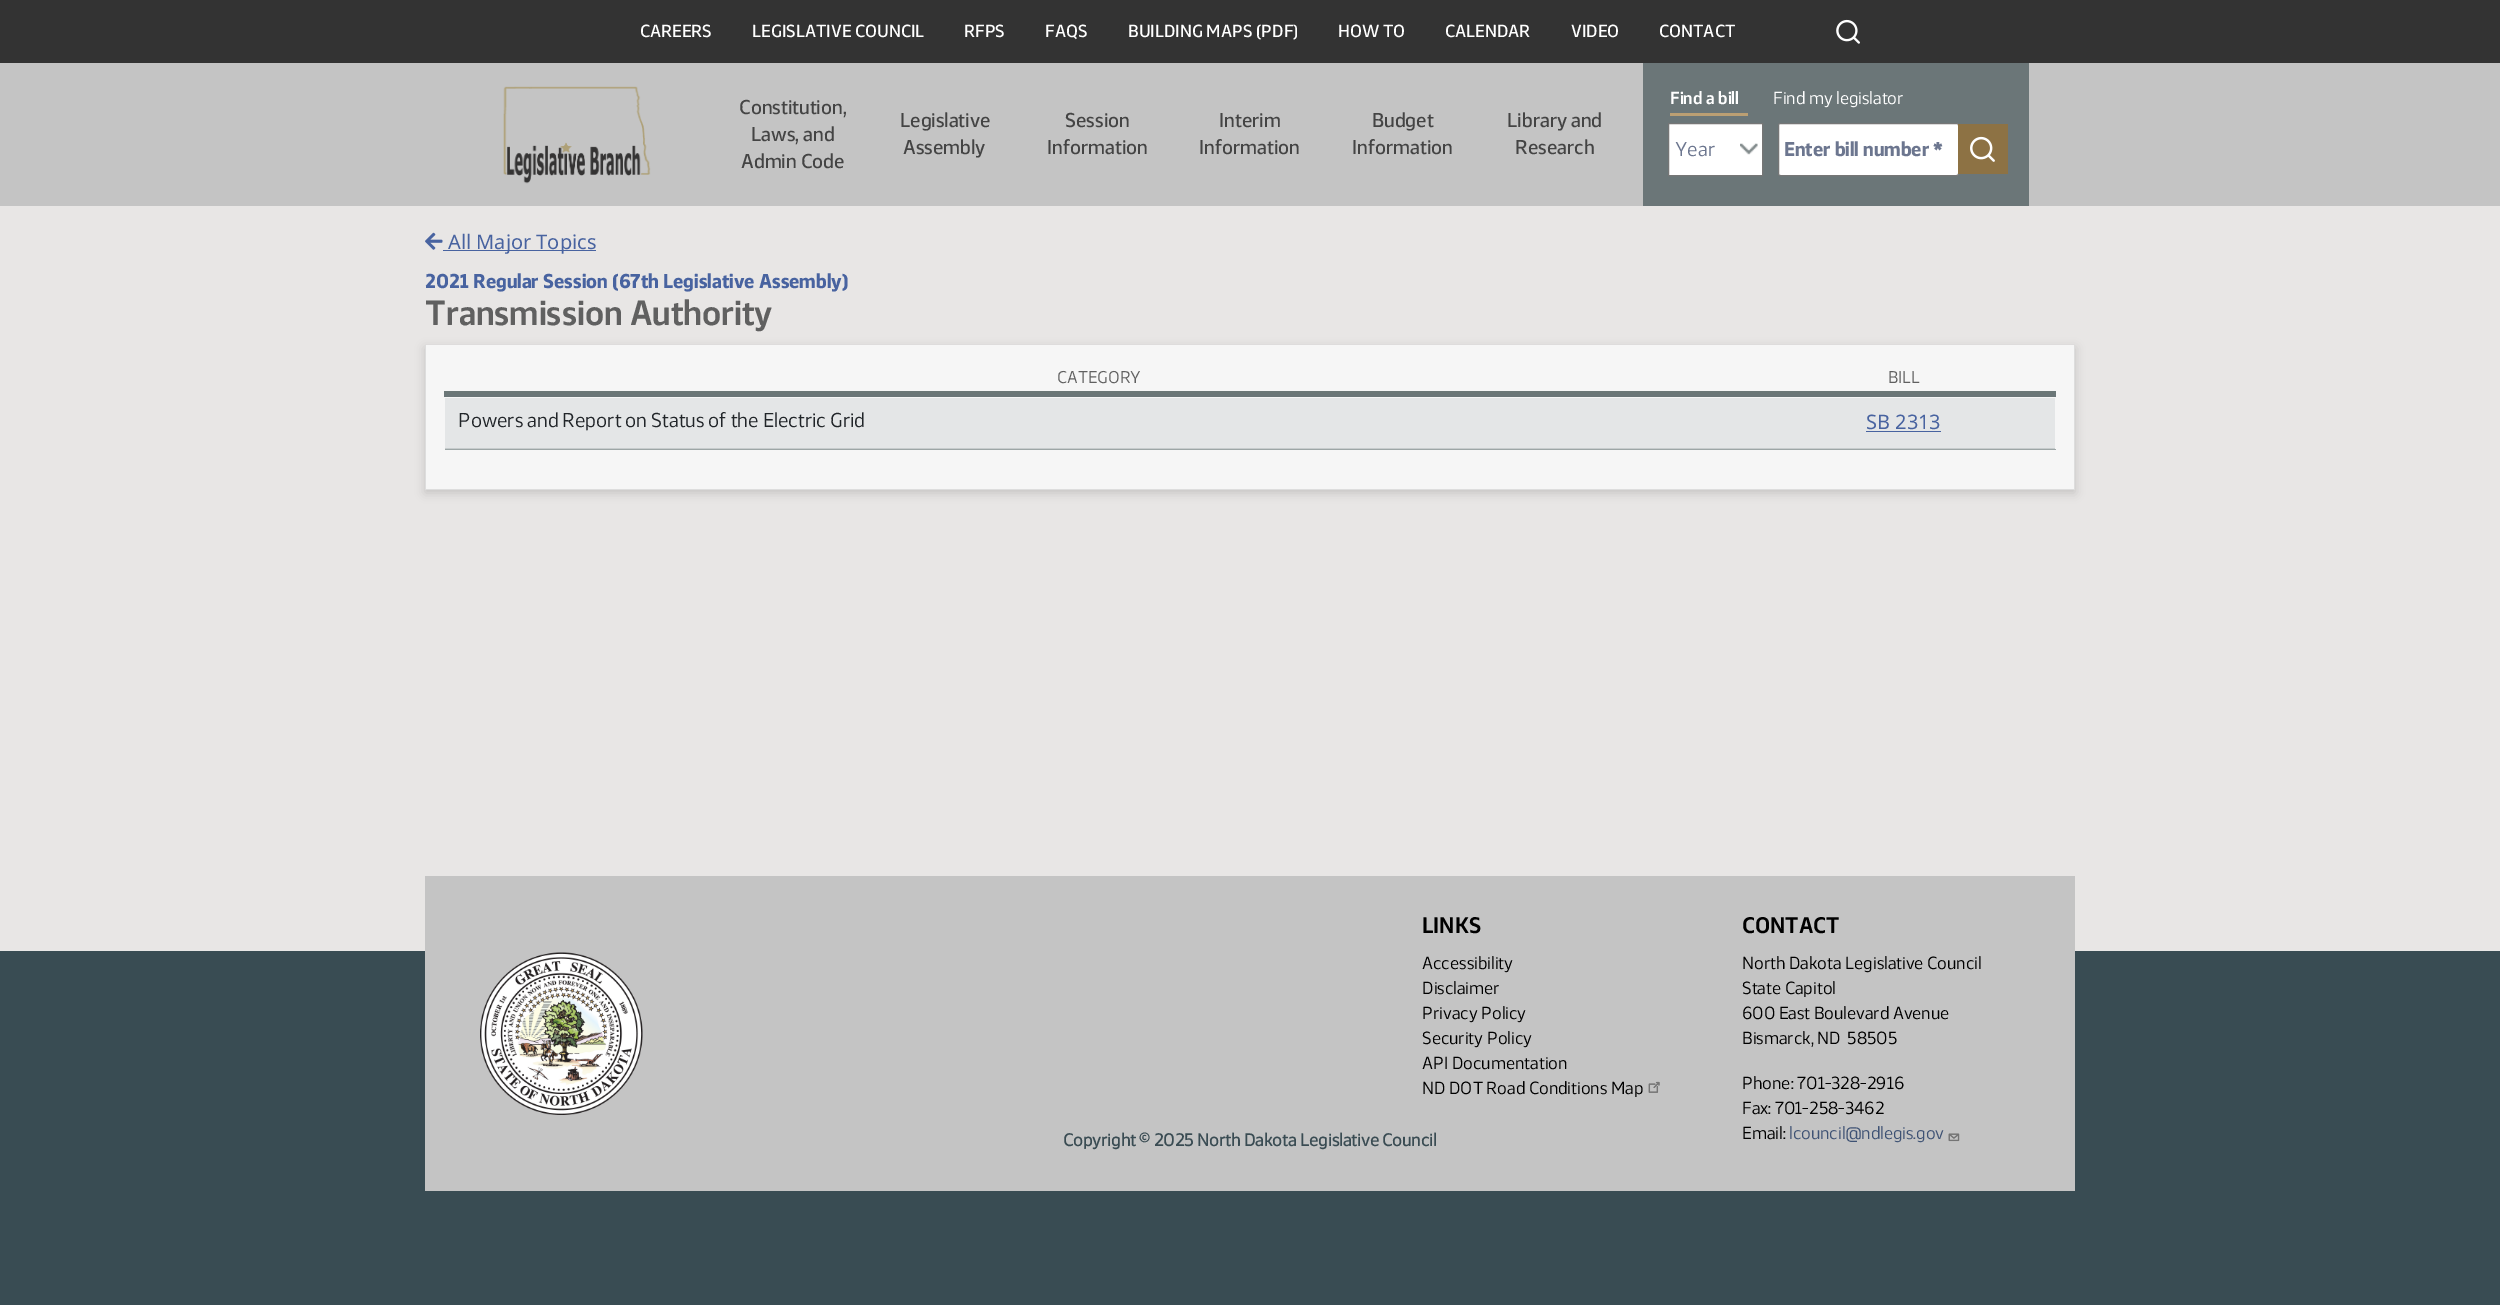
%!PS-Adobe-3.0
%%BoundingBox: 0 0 2500 1305
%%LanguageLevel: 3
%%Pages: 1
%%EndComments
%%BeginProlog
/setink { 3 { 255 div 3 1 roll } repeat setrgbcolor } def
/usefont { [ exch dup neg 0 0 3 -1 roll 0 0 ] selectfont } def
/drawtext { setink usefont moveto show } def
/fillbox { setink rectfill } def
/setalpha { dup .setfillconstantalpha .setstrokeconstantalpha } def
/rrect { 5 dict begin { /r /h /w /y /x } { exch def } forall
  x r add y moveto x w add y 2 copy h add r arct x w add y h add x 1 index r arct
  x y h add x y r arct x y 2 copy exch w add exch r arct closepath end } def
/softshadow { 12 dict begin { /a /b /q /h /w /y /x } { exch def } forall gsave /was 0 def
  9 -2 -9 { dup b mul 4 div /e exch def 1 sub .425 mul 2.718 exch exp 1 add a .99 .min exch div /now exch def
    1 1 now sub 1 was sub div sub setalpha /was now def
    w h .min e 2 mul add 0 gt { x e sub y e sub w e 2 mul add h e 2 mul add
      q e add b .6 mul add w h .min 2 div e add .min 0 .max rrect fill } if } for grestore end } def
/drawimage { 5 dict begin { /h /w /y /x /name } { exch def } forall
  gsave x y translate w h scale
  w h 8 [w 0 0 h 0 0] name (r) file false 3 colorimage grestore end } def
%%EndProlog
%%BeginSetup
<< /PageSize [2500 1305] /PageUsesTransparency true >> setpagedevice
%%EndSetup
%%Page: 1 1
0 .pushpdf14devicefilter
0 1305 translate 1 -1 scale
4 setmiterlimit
0 0 2500 1305 232 230 229 fillbox
0 0 2500 63 51 51 51 fillbox
(CAREERS) 640 37 /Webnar-Medium 17.5 255 255 255 drawtext
(LEGISLATIVE COUNCIL) 752 37 /Webnar-Medium 17.5 255 255 255 drawtext
(RFPS) 964 37 /Webnar-Medium 17.5 255 255 255 drawtext
(FAQS) 1045 37 /Webnar-Medium 17.5 255 255 255 drawtext
(BUILDING MAPS \(PDF\)) 1128 37 /Webnar-Medium 17.5 255 255 255 drawtext
(HOW TO) 1338 37 /Webnar-Medium 17.5 255 255 255 drawtext
(CALENDAR) 1445 37 /Webnar-Medium 17.5 255 255 255 drawtext
(VIDEO) 1571 37 /Webnar-Medium 17.5 255 255 255 drawtext
(CONTACT) 1659 37 /Webnar-Medium 17.5 255 255 255 drawtext
(assets/img1.rgb) 1836 19 24 25 drawimage
0 63 2500 143 196 196 196 fillbox
(assets/img2.rgb) 503 86 148 98 drawimage
(Constitution,) 739 114 /Webnar-Medium 20 68 68 68 drawtext
(Laws, and) 751 141 /Webnar-Medium 20 68 68 68 drawtext
(Admin Code) 741 168 /Webnar-Medium 20 68 68 68 drawtext
(Legislative) 900 127 /Webnar-Medium 20 68 68 68 drawtext
(Assembly) 903 154 /Webnar-Medium 20 68 68 68 drawtext
(Session) 1065 127 /Webnar-Medium 20 68 68 68 drawtext
(Information) 1047 154 /Webnar-Medium 20 68 68 68 drawtext
(Interim) 1219 127 /Webnar-Medium 20 68 68 68 drawtext
(Information) 1199 154 /Webnar-Medium 20 68 68 68 drawtext
(Budget) 1372 127 /Webnar-Medium 20 68 68 68 drawtext
(Information) 1352 154 /Webnar-Medium 20 68 68 68 drawtext
(Library and) 1507 127 /Webnar-Medium 20 68 68 68 drawtext
(Research) 1515 154 /Webnar-Medium 20 68 68 68 drawtext
1643 63 386 143 107 118 120 fillbox
1670 113 78 3 187 159 115 fillbox
(Find a bill) 1670 104 /Webnar-SemiBold 17.5 255 255 255 drawtext
(Find my legislator) 1773 104 /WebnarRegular-Regular 17.5 255 255 255 drawtext
1669 124 93 51 255 255 255 fillbox
(assets/img3.rgb) 1740 143 18 12 drawimage
118 118 118 setink
1668.5 123.5 94 52 rectstroke
(Year) 1675 156 /WebnarRegular-Regular 20 108 118 143 drawtext
255 255 255 setink
1778.5 123.5 180 52 2 rrect gsave fill grestore
118 118 118 setink
stroke
(Enter bill number *) 1784 156 /Webnar-Bold 20 108 118 143 drawtext
(assets/img4.rgb) 1958 124 50 50 drawimage
(assets/img5.rgb) 425 232 18 18 drawimage
443 250 153 1 72 99 160 fillbox
(All Major Topics) 448 249 /NotoSans-Regular 20 72 99 160 drawtext
(2021 Regular Session \(67th Legislative Assembly\)) 425 288 /Webnar-Bold 20 72 99 160 drawtext
(Transmission Authority) 425 325 /Webnar-SemiBold 35 96 96 96 drawtext
0 0 0 setink
425 348 1650 145 0 5 0.15 softshadow
426 345 1648 144 246 246 246 fillbox
2074 345 1 145 221 221 221 fillbox
425 489 1650 1 221 221 221 fillbox
425 345 1 145 221 221 221 fillbox
(CATEGORY) 1057 383 /WebnarRegular-Regular 17 96 96 96 drawtext
444 391 1612 3 107 119 119 fillbox
(BILL) 1888 383 /WebnarRegular-Regular 17 96 96 96 drawtext
445 448 1610 1 199 204 205 fillbox
444 394 1612 3 107 118 120 fillbox
445 398 1610 50 228 230 231 fillbox
(Powers and Report on Status of the Electric Grid) 458 427 /WebnarRegular-Regular 20 33 37 41 drawtext
445 449 1611 1 157 166 166 fillbox
(SB 2313) 1866 429 /NotoSans-Regular 20 72 99 160 drawtext
1866 431 75 1 72 99 160 fillbox
0 951 2500 354 57 76 83 fillbox
425 876 1650 315 196 196 196 fillbox
(assets/img6.rgb) 480 952 163 163 drawimage
(Copyright © 2025 North Dakota Legislative Council) 1063 1146 /WebnarRegular-Bold 17.5 58 76 83 drawtext
(LINKS) 1422 933 /Webnar-SemiBold 22.5 0 0 0 drawtext
(Accessibility) 1422 969 /WebnarRegular-Regular 17.5 0 0 0 drawtext
(Disclaimer) 1422 994 /WebnarRegular-Regular 17.5 0 0 0 drawtext
(Privacy Policy) 1422 1019 /WebnarRegular-Regular 17.5 0 0 0 drawtext
(Security Policy) 1422 1044 /WebnarRegular-Regular 17.5 0 0 0 drawtext
(API Documentation) 1422 1069 /WebnarRegular-Regular 17.5 0 0 0 drawtext
(ND DOT Road Conditions Map) 1422 1094 /WebnarRegular-Regular 17.5 0 0 0 drawtext
(assets/img7.rgb) 1648 1081 12 12 drawimage
(CONTACT) 1742 933 /Webnar-SemiBold 22.5 0 0 0 drawtext
(North Dakota Legislative Council) 1742 969 /WebnarRegular-Regular 17.5 0 0 0 drawtext
(State Capitol) 1742 994 /WebnarRegular-Regular 17.5 0 0 0 drawtext
(600 East Boulevard Avenue) 1742 1019 /WebnarRegular-Regular 17.5 0 0 0 drawtext
(Bismarck, ND  58505) 1742 1044 /WebnarRegular-Regular 17.5 0 0 0 drawtext
(Phone: 701-328-2916) 1742 1089 /WebnarRegular-Regular 17.5 0 0 0 drawtext
(Fax: 701-258-3462) 1742 1114 /WebnarRegular-Regular 17.5 0 0 0 drawtext
(Email:) 1742 1139 /WebnarRegular-Regular 17.5 0 0 0 drawtext
(lcouncil@ndlegis.gov) 1789 1139 /WebnarRegular-Regular 17.5 62 82 116 drawtext
(assets/img8.rgb) 1948 1133 12 9 drawimage
.poppdf14devicefilter showpage
%%EOF
